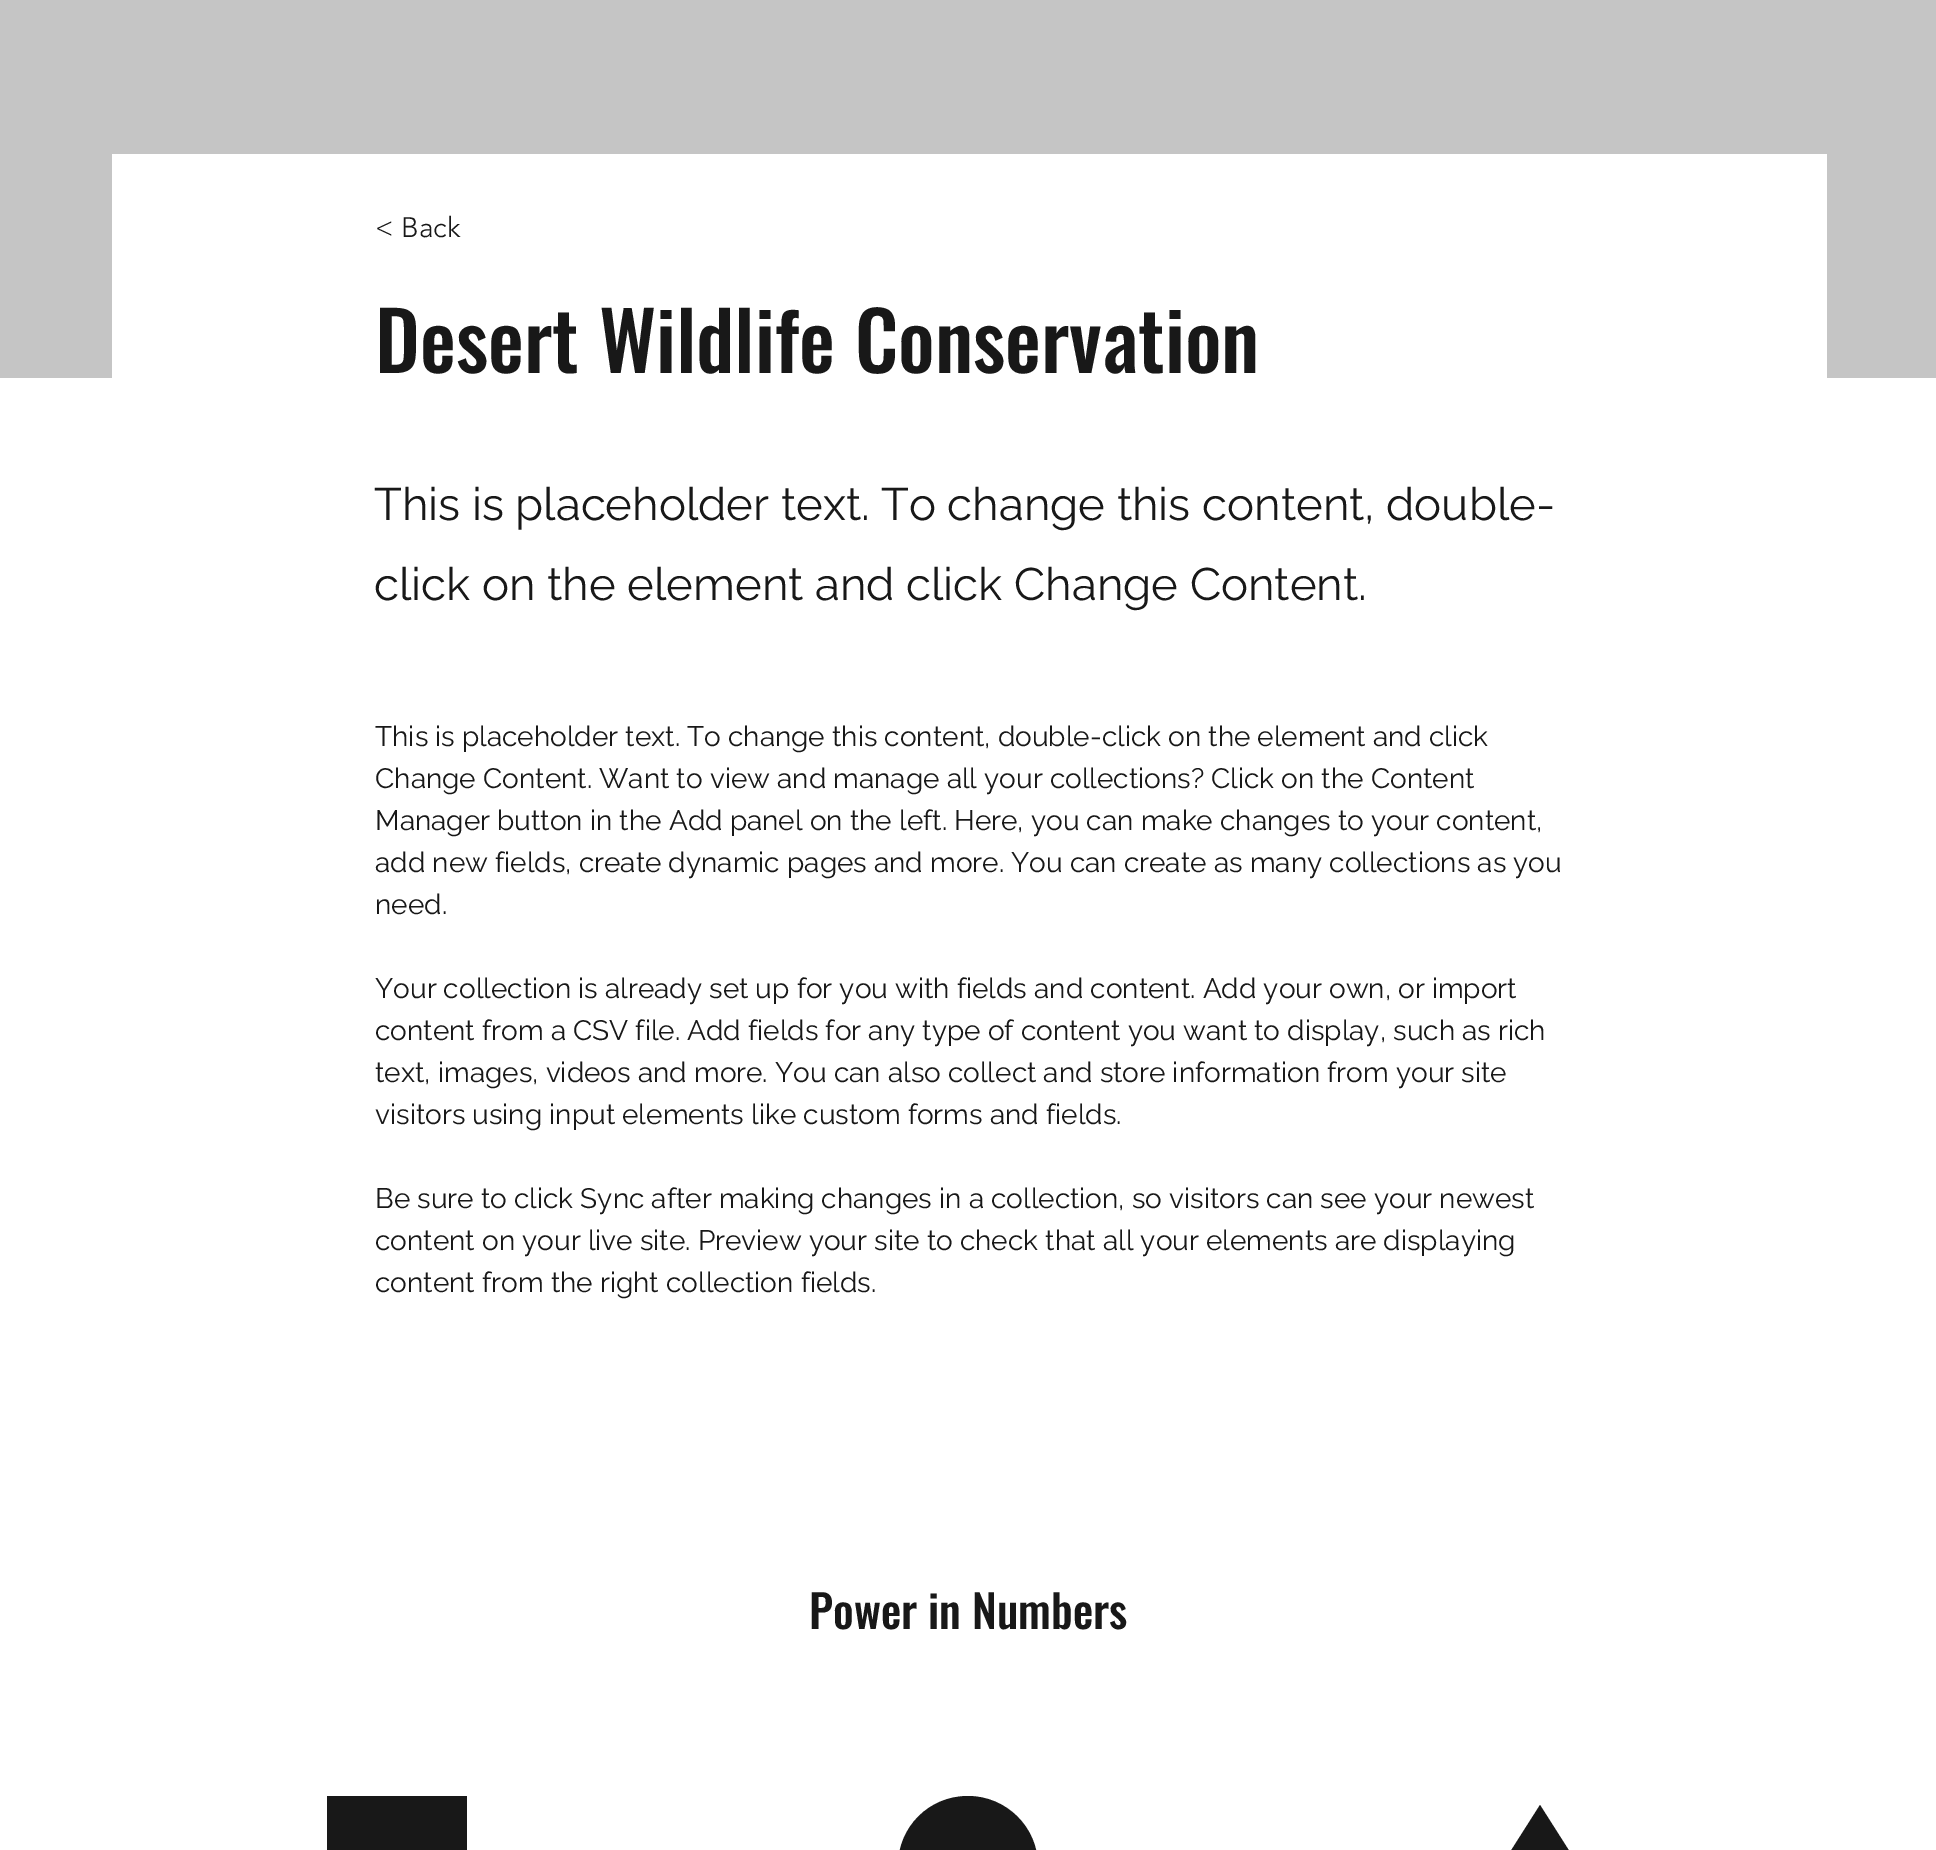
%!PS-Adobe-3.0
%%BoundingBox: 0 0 1936 1850
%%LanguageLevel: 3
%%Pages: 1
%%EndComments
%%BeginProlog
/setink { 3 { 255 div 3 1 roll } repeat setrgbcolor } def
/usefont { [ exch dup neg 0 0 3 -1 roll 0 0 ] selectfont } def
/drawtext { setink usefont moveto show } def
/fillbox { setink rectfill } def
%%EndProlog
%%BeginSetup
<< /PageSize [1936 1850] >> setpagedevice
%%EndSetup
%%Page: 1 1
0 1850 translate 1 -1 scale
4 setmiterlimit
0 0 1936 1850 255 255 255 fillbox
0 0 1936 378 197 197 197 fillbox
112 154 1715 224 255 255 255 fillbox
(< Back) 375 237 /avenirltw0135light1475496-Light 28 24 24 24 drawtext
(Desert Wildlife Conservation) 375 373 /Oswald-Medium 80.5 24 24 24 drawtext
(This is placeholder text. To change this content, double-) 374 520 /Raleway-Regular 45.5 24 24 24 drawtext
(click on the element and click Change Content.) 374 600 /Raleway-Regular 45.5 24 24 24 drawtext
(This is placeholder text. To change this content, double-click on the element and click) 375 746 /Raleway-Regular 28 24 24 24 drawtext
(Change Content. Want to view and manage all your collections? Click on the Content) 375 788 /Raleway-Regular 28 24 24 24 drawtext
(Manager button in the Add panel on the left. Here, you can make changes to your content,) 375 830 /Raleway-Regular 28 24 24 24 drawtext
(add new fields, create dynamic pages and more. You can create as many collections as you) 375 872 /Raleway-Regular 28 24 24 24 drawtext
(need.) 375 914 /Raleway-Regular 28 24 24 24 drawtext
(Your collection is already set up for you with fields and content. Add your own, or import) 375 998 /Raleway-Regular 28 24 24 24 drawtext
(content from a CSV file. Add fields for any type of content you want to display, such as rich) 375 1040 /Raleway-Regular 28 24 24 24 drawtext
(text, images, videos and more. You can also collect and store information from your site) 375 1082 /Raleway-Regular 28 24 24 24 drawtext
(visitors using input elements like custom forms and fields.) 375 1124 /Raleway-Regular 28 24 24 24 drawtext
(Be sure to click Sync after making changes in a collection, so visitors can see your newest) 375 1208 /Raleway-Regular 28 24 24 24 drawtext
(content on your live site. Preview your site to check that all your elements are displaying) 375 1250 /Raleway-Regular 28 24 24 24 drawtext
(content from the right collection fields.) 375 1292 /Raleway-Regular 28 24 24 24 drawtext
(Power in Numbers) 809 1629 /Oswald-Medium 45.5 24 24 24 drawtext
327 1796 140 54 24 24 24 fillbox
1038 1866 moveto 1038 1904 1006 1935 968 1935 curveto 929 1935 898 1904 898 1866 curveto 898 1827 929 1796 968 1796 curveto 1006 1796 1038 1827 1038 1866 curveto eofill
1540 1805 moveto 1617 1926 lineto 1463 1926 lineto closepath eofill
showpage
%%EOF
